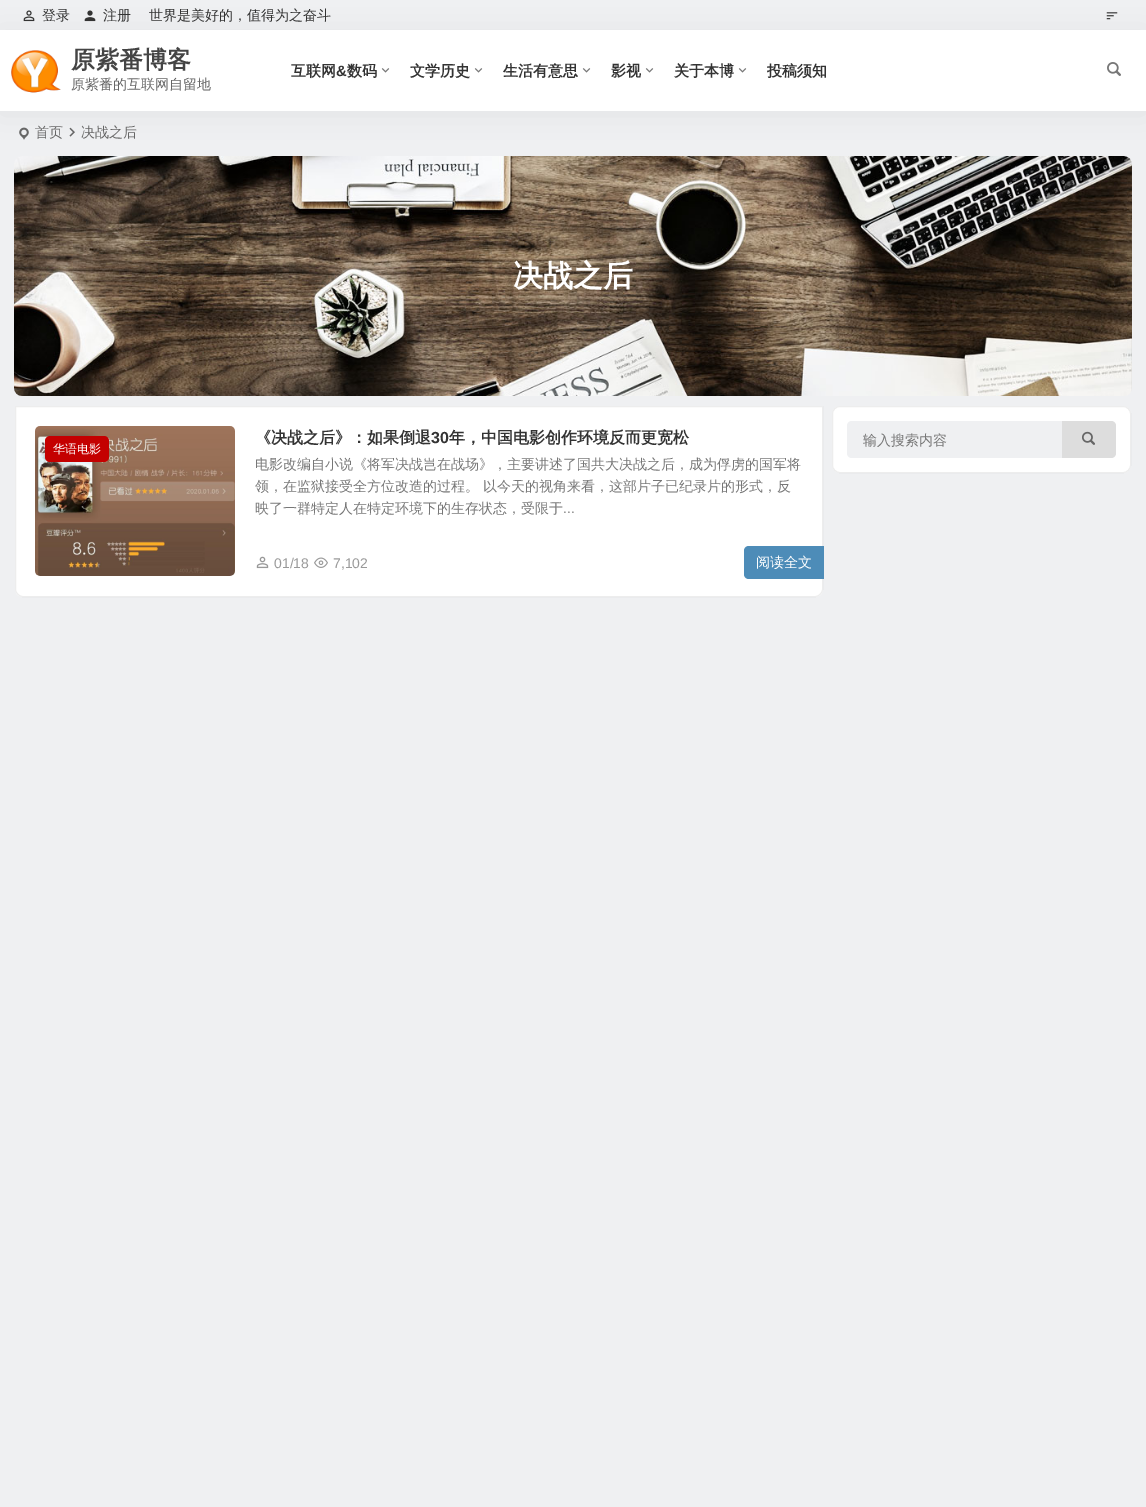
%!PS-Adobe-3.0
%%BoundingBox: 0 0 1146 1507
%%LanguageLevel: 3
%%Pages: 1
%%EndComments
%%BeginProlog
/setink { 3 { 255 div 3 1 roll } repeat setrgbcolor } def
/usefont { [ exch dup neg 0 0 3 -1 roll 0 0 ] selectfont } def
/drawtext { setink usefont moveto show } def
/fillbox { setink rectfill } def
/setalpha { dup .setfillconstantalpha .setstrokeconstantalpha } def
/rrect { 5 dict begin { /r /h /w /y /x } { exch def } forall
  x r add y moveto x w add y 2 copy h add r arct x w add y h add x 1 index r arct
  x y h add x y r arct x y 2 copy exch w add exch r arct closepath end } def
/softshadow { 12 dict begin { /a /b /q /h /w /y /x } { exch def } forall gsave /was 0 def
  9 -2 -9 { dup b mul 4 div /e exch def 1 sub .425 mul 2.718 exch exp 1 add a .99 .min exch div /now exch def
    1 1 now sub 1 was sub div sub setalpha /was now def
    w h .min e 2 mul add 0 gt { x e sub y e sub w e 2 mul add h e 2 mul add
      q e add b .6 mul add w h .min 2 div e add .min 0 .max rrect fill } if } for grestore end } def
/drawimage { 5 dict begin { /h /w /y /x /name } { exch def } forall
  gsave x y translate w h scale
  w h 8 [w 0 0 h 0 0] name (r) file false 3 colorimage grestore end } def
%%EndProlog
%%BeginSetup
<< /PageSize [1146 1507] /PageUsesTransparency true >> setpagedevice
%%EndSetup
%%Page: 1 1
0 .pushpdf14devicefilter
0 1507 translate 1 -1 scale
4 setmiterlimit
0 0 1146 1507 239 240 242 fillbox
(assets/img7.rgb) 19 127 10 13 drawimage
(assets/img8.rgb) 69 127 6 10 drawimage
(assets/img9.rgb) 14 156 1118 240 drawimage
0 0 0 setink
0 33 1146 81 0 15 0.06 softshadow
(assets/img1.rgb) 23 10 12 12 drawimage
(登录) 42 20 /WenQuanYiZenHei-Medium 14 51 51 51 drawtext
(assets/img2.rgb) 84 10 12 12 drawimage
(注册) 103 20 /WenQuanYiZenHei-Medium 14 51 51 51 drawtext
(世界是美好的，值得为之奋斗) 149 20 /WenQuanYiZenHei-Medium 14 51 51 51 drawtext
(assets/img3.rgb) 1106 12 12 8 drawimage
0 30 1146 81 255 255 255 fillbox
(assets/img4.rgb) 11 50 50 43 drawimage
(原紫番博客) 71 68 /WenQuanYiZenHei-Bold 24 68 68 68 drawtext
(原紫番的互联网自留地) 71 89 /WenQuanYiZenHei-Medium 14 102 102 102 drawtext
(互联网) 291 76 /WenQuanYiZenHei-Bold 15 51 51 51 drawtext
(&) 336 76 /LiberationSans-Bold 15 51 51 51 drawtext
(数码) 347 76 /WenQuanYiZenHei-Bold 15 51 51 51 drawtext
(assets/img5.rgb) 381 68 9 5 drawimage
(文学历史) 410 76 /WenQuanYiZenHei-Bold 15 51 51 51 drawtext
(assets/img5.rgb) 474 68 9 5 drawimage
(生活有意思) 503 76 /WenQuanYiZenHei-Bold 15 51 51 51 drawtext
(assets/img5.rgb) 582 68 9 5 drawimage
(影视) 611 76 /WenQuanYiZenHei-Bold 15 51 51 51 drawtext
(assets/img5.rgb) 645 68 9 5 drawimage
(关于本博) 674 76 /WenQuanYiZenHei-Bold 15 51 51 51 drawtext
(assets/img5.rgb) 738 68 9 5 drawimage
(投稿须知) 767 76 /WenQuanYiZenHei-Bold 15 51 51 51 drawtext
(assets/img6.rgb) 1107 62 14 14 drawimage
(首页) 35 137 /WenQuanYiZenHei-Medium 14 102 102 102 drawtext
(决战之后) 81 137 /WenQuanYiZenHei-Medium 14 102 102 102 drawtext
(决战之后) 513 286 /WenQuanYiZenHei-Bold 30 255 255 255 drawtext
15 406 moveto 823 406 lineto 823 589 lineto 823 593.5 819.5 597 815 597 curveto 23 597 lineto 18.5 597 15 593.5 15 589 curveto closepath fill
0.07 setalpha
0 0 0 setink
15.5 406.5 moveto 822.5 406.5 lineto 822.5 589 lineto 822.5 593 819 596.5 815 596.5 curveto 23 596.5 lineto 19 596.5 15.5 593 15.5 589 curveto closepath stroke
1 setalpha
(assets/img10.rgb) 35 426 200 150 drawimage
196 0 0 setink
45 436 64 26 5 rrect fill
(华语电影) 53 453 /WenQuanYiZenHei-Medium 12 255 255 255 drawtext
(《决战之后》：如果倒退) 255 443 /WenQuanYiZenHei-Bold 16 51 51 51 drawtext
(30) 431 443 /LiberationSans-Bold 16 51 51 51 drawtext
(年，中国电影创作环境反而更宽松) 449 443 /WenQuanYiZenHei-Bold 16 51 51 51 drawtext
(电影改编自小说《将军决战岂在战场》，主要讲述了国共大决战之后，成为俘虏的国军将) 255 469 /WenQuanYiZenHei-Medium 14 119 119 119 drawtext
(领，在监狱接受全方位改造的过程。 以今天的视角来看，这部片子已纪录片的形式，反) 255 491 /WenQuanYiZenHei-Medium 14 119 119 119 drawtext
(映了一群特定人在特定环境下的生存状态，受限于) 255 513 /WenQuanYiZenHei-Medium 14 119 119 119 drawtext
(...) 563 513 /LiberationSans-Regular 14 119 119 119 drawtext
(assets/img11.rgb) 256 556 13 13 drawimage
(01/18) 274 568 /LiberationSans-Regular 14 153 153 153 drawtext
(assets/img12.rgb) 314 557 14 11 drawimage
(7,102) 333 568 /LiberationSans-Regular 14 153 153 153 drawtext
77 140 184 setink
749 546 moveto 824 546 lineto 824 579 lineto 749 579 lineto 746 579 744 577 744 574 curveto 744 551 lineto 744 548 746 546 749 546 curveto closepath fill
(阅读全文) 756 567 /WenQuanYiZenHei-Medium 14 255 255 255 drawtext
832 406 299 67 8 rrect fill
0.07 setalpha
0 0 0 setink
832.5 406.5 298 66 7.5 rrect stroke
1 setalpha
239 240 242 setink
852 421 moveto 1062 421 lineto 1062 458 lineto 852 458 lineto 849 458 847 456 847 453 curveto 847 426 lineto 847 423 849 421 852 421 curveto closepath fill
(输入搜索内容) 863 445 /WenQuanYiZenHei-Medium 14 119 119 119 drawtext
221 221 221 setink
1062 421 moveto 1111 421 lineto 1114 421 1116 423 1116 426 curveto 1116 453 lineto 1116 456 1114 458 1111 458 curveto 1062 458 lineto closepath fill
(assets/img13.rgb) 1082 431 13 14 drawimage
.poppdf14devicefilter showpage
%%EOF
